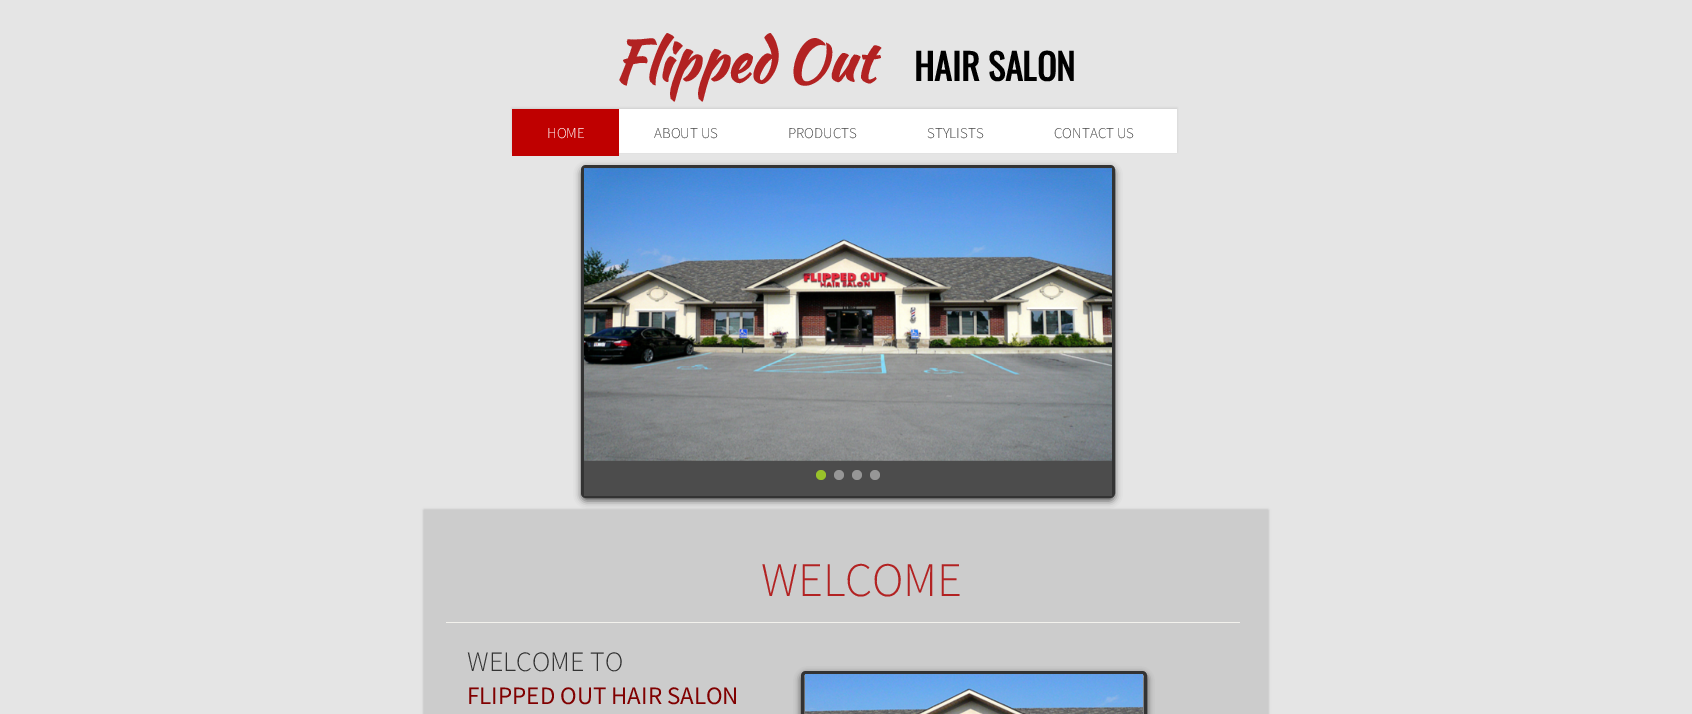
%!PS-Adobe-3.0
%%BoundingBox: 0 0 1692 714
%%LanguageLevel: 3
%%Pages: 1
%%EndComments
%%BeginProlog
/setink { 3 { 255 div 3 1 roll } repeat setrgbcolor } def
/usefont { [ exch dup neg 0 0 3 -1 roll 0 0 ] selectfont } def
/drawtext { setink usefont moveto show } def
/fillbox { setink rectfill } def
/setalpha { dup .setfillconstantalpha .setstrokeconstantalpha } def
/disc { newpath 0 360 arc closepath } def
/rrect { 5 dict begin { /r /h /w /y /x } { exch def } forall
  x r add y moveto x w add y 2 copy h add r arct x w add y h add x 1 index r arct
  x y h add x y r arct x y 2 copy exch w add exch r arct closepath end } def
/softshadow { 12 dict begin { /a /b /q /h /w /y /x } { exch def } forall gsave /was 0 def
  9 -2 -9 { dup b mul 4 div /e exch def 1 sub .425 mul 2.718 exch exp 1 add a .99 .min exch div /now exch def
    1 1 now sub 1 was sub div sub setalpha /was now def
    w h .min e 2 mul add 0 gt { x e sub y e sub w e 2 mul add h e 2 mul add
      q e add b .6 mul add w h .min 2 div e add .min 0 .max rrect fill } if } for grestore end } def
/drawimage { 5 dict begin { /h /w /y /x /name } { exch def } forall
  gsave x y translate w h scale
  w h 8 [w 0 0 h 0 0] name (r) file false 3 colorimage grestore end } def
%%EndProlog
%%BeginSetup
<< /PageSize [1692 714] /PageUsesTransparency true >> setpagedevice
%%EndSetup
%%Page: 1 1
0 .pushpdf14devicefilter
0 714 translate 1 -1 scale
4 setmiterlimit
0 0 1692 714 229 229 229 fillbox
50 50 50 setink
424 510 844 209 0 1.5 0.3 softshadow
424 510 844 204 204 204 204 fillbox
(Flipped Out) 613 81 /KaushanScript-Bold 56 178 34 34 drawtext
(HAIR SALON) 914 81 /Oswald-Bold 36 0 0 0 drawtext
512 108 665 44 0 1 0.1 softshadow
619 109 558 44 255 255 255 fillbox
512 109 107 47 191 0 0 fillbox
(HOME) 547 138 /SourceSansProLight-Light 15 255 255 255 drawtext
(ABOUT US) 654 138 /SourceSansProLight-Light 15 68 68 68 drawtext
(PRODUCTS) 788 138 /SourceSansProLight-Light 15 68 68 68 drawtext
(STYLISTS) 927 138 /SourceSansProLight-Light 15 68 68 68 drawtext
(CONTACT US) 1054 138 /SourceSansProLight-Light 15 68 68 68 drawtext
50 50 50 setink
581 168 534 333 5 3.5 0.75 softshadow
51 51 51 setink
3 setlinewidth
582.5 166.5 531 330 3.5 rrect stroke
584 168 528 328 76 76 76 fillbox
(assets/img1.rgb) 584 168 528 293 drawimage
152 194 42 setink
821 475 5 disc fill
150 150 150 setink
839 475 5 disc fill
857 475 5 disc fill
875 475 5 disc fill
(WELCOME) 761 596 /SourceSansProLight-Light 48 178 34 34 drawtext
446 622 794 1 243 242 237 fillbox
(WELCOME TO) 467 671 /SourceSansProLight-Light 28 51 51 51 drawtext
(FLIPPED OUT HAIR SALON) 467 704 /SourceSansPro-Regular 25 128 0 0 drawtext
50 50 50 setink
801 674 346 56 5 3.5 0.75 softshadow
178 178 178 setink
806 671 moveto 1142 671 lineto 1145 671 1147 673 1147 676 curveto 1147 714 lineto 801 714 lineto 801 676 lineto 801 673 803 671 806 671 curveto closepath fill
51 51 51 setink
802.5 672.5 343 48 3.5 rrect stroke
50 50 50 setink
805 677 338 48 0 3.5 0.75 softshadow
(assets/img2.rgb) 805 674 338 40 drawimage
.poppdf14devicefilter showpage
%%EOF
